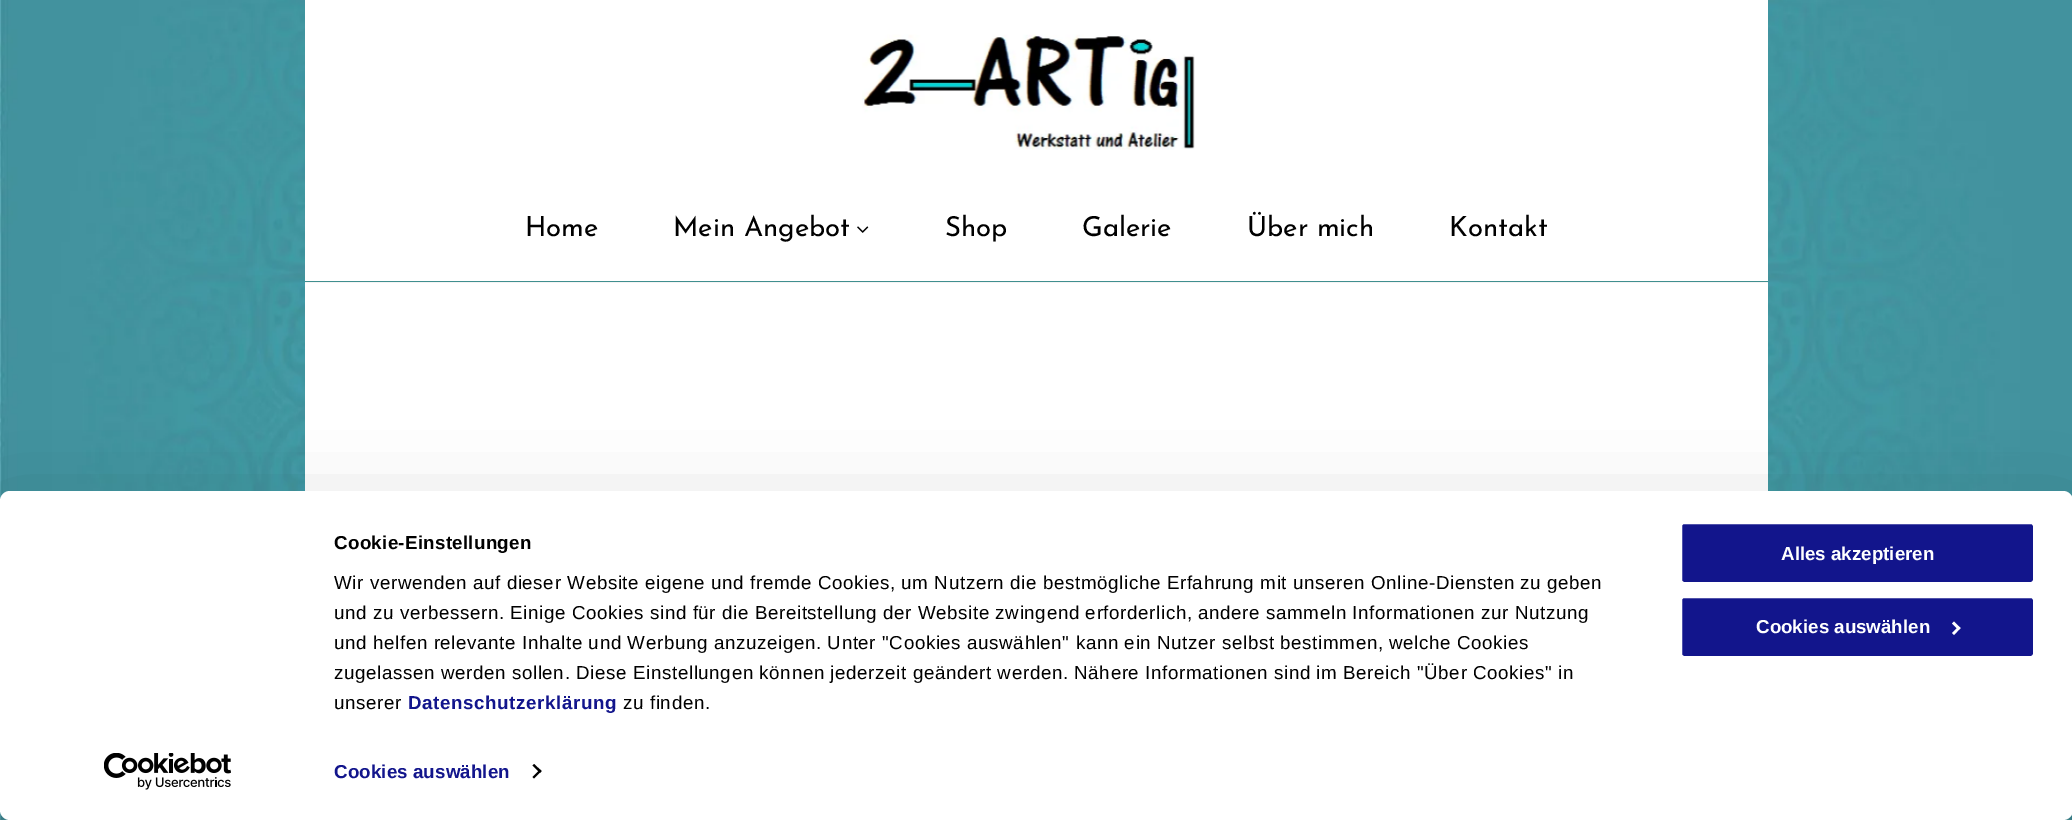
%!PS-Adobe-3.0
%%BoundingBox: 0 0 2072 820
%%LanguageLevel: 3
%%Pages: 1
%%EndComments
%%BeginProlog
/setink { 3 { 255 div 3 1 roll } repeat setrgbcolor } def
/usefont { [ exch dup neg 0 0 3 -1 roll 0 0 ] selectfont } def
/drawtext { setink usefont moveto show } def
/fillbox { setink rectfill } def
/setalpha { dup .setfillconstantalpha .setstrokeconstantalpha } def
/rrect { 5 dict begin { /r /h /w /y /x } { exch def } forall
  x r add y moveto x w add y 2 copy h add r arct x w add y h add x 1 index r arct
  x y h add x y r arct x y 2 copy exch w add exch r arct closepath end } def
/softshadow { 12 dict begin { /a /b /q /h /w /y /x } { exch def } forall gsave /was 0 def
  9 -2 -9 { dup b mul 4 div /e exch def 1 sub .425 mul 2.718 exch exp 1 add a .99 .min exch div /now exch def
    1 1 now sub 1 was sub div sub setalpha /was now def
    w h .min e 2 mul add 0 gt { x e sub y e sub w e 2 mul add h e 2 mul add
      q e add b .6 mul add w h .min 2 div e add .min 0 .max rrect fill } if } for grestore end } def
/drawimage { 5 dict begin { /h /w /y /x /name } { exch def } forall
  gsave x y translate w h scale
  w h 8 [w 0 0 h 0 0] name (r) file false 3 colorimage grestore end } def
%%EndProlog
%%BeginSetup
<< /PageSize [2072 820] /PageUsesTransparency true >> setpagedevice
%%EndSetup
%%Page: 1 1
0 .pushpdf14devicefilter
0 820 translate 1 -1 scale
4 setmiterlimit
0 0 2072 820 255 255 255 fillbox
(assets/img1.rgb) 0 0 2072 820 drawimage
305 282 1463 1 244 244 244 fillbox
305 0 1463 281 255 255 255 fillbox
305 281 1463 1 64 143 143 fillbox
(assets/img2.rgb) 862 34 333 116 drawimage
(Home) 525 236 /JosefinSans-Regular 27.5 0 0 0 drawtext
(Mein Angebot) 673 236 /JosefinSans-Regular 27.5 0 0 0 drawtext
(assets/img3.rgb) 857 226 12 7 drawimage
(Shop) 945 236 /JosefinSans-Regular 27.5 0 0 0 drawtext
(Galerie) 1082 236 /JosefinSans-Regular 27.5 0 0 0 drawtext
(Über mich) 1247 236 /JosefinSans-Regular 27.5 0 0 0 drawtext
(Kontakt) 1449 236 /JosefinSans-Regular 27.5 0 0 0 drawtext
305 283 1463 208 255 255 255 fillbox
0 0 0 setink
0 529 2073 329 10 44 0.3 softshadow
255 255 255 setink
0 491 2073 329 10 rrect fill
/LiberationSans-Bold 18.75 usefont
0 0 0 setink
334 549 moveto 0.3 0 (Cookie-Einstellungen) ashow
/LiberationSans-Regular 18.75 usefont
334 589 moveto 0.62 0 (Wir verwenden auf dieser Website eigene und fremde Cookies, um Nutzern die bestmögliche Erfahrung mit unseren Online-Diensten zu geben) ashow
334 619 moveto 0.62 0 (und zu verbessern. Einige Cookies sind für die Bereitstellung der Website zwingend erforderlich, andere sammeln Informationen zur Nutzung) ashow
334 649 moveto 0.62 0 (und helfen relevante Inhalte und Werbung anzuzeigen. Unter "Cookies auswählen" kann ein Nutzer selbst bestimmen, welche Cookies) ashow
334 679 moveto 0.62 0 (zugelassen werden sollen. Diese Einstellungen können jederzeit geändert werden. Nähere Informationen sind im Bereich "Über Cookies" in) ashow
334 709 moveto 0.62 0 (unserer) ashow
/LiberationSans-Bold 18.75 usefont
18 21 140 setink
408 709 moveto 0.62 0 (Datenschutzerklärung) ashow
/LiberationSans-Regular 18.75 usefont
0 0 0 setink
623 709 moveto 0.62 0 (zu finden.) ashow
/LiberationSans-Bold 18.75 usefont
18 21 140 setink
334 778 moveto 0.1 0 (Cookies auswählen) ashow
0 0 0 setink
534 764 moveto 541.5 771 lineto 540 773 lineto 532.5 765.5 lineto closepath fill
540 769.5 moveto 541.5 771 lineto 534 778.5 lineto 532.5 777 lineto closepath fill
18 21 140 setink
1680.5 522.5 354 61 3.5 rrect gsave fill grestore
255 255 255 setink
3 setlinewidth
stroke
(Alles akzeptieren) 1781 560 /LiberationSans-Bold 18.75 255 255 255 drawtext
18 21 140 setink
1680.5 596.5 354 61 3.5 rrect gsave fill grestore
255 255 255 setink
stroke
(Cookies auswählen) 1756 633 /LiberationSans-Bold 18.75 255 255 255 drawtext
1954 621.5 moveto 1960.5 628 lineto 1958.5 630 lineto 1952 623.5 lineto closepath fill
1958.5 626.5 moveto 1960.5 628 lineto 1954 635 lineto 1952 633 lineto closepath fill
(assets/img4.rgb) 104 753 127 37 drawimage
.poppdf14devicefilter showpage
%%EOF
